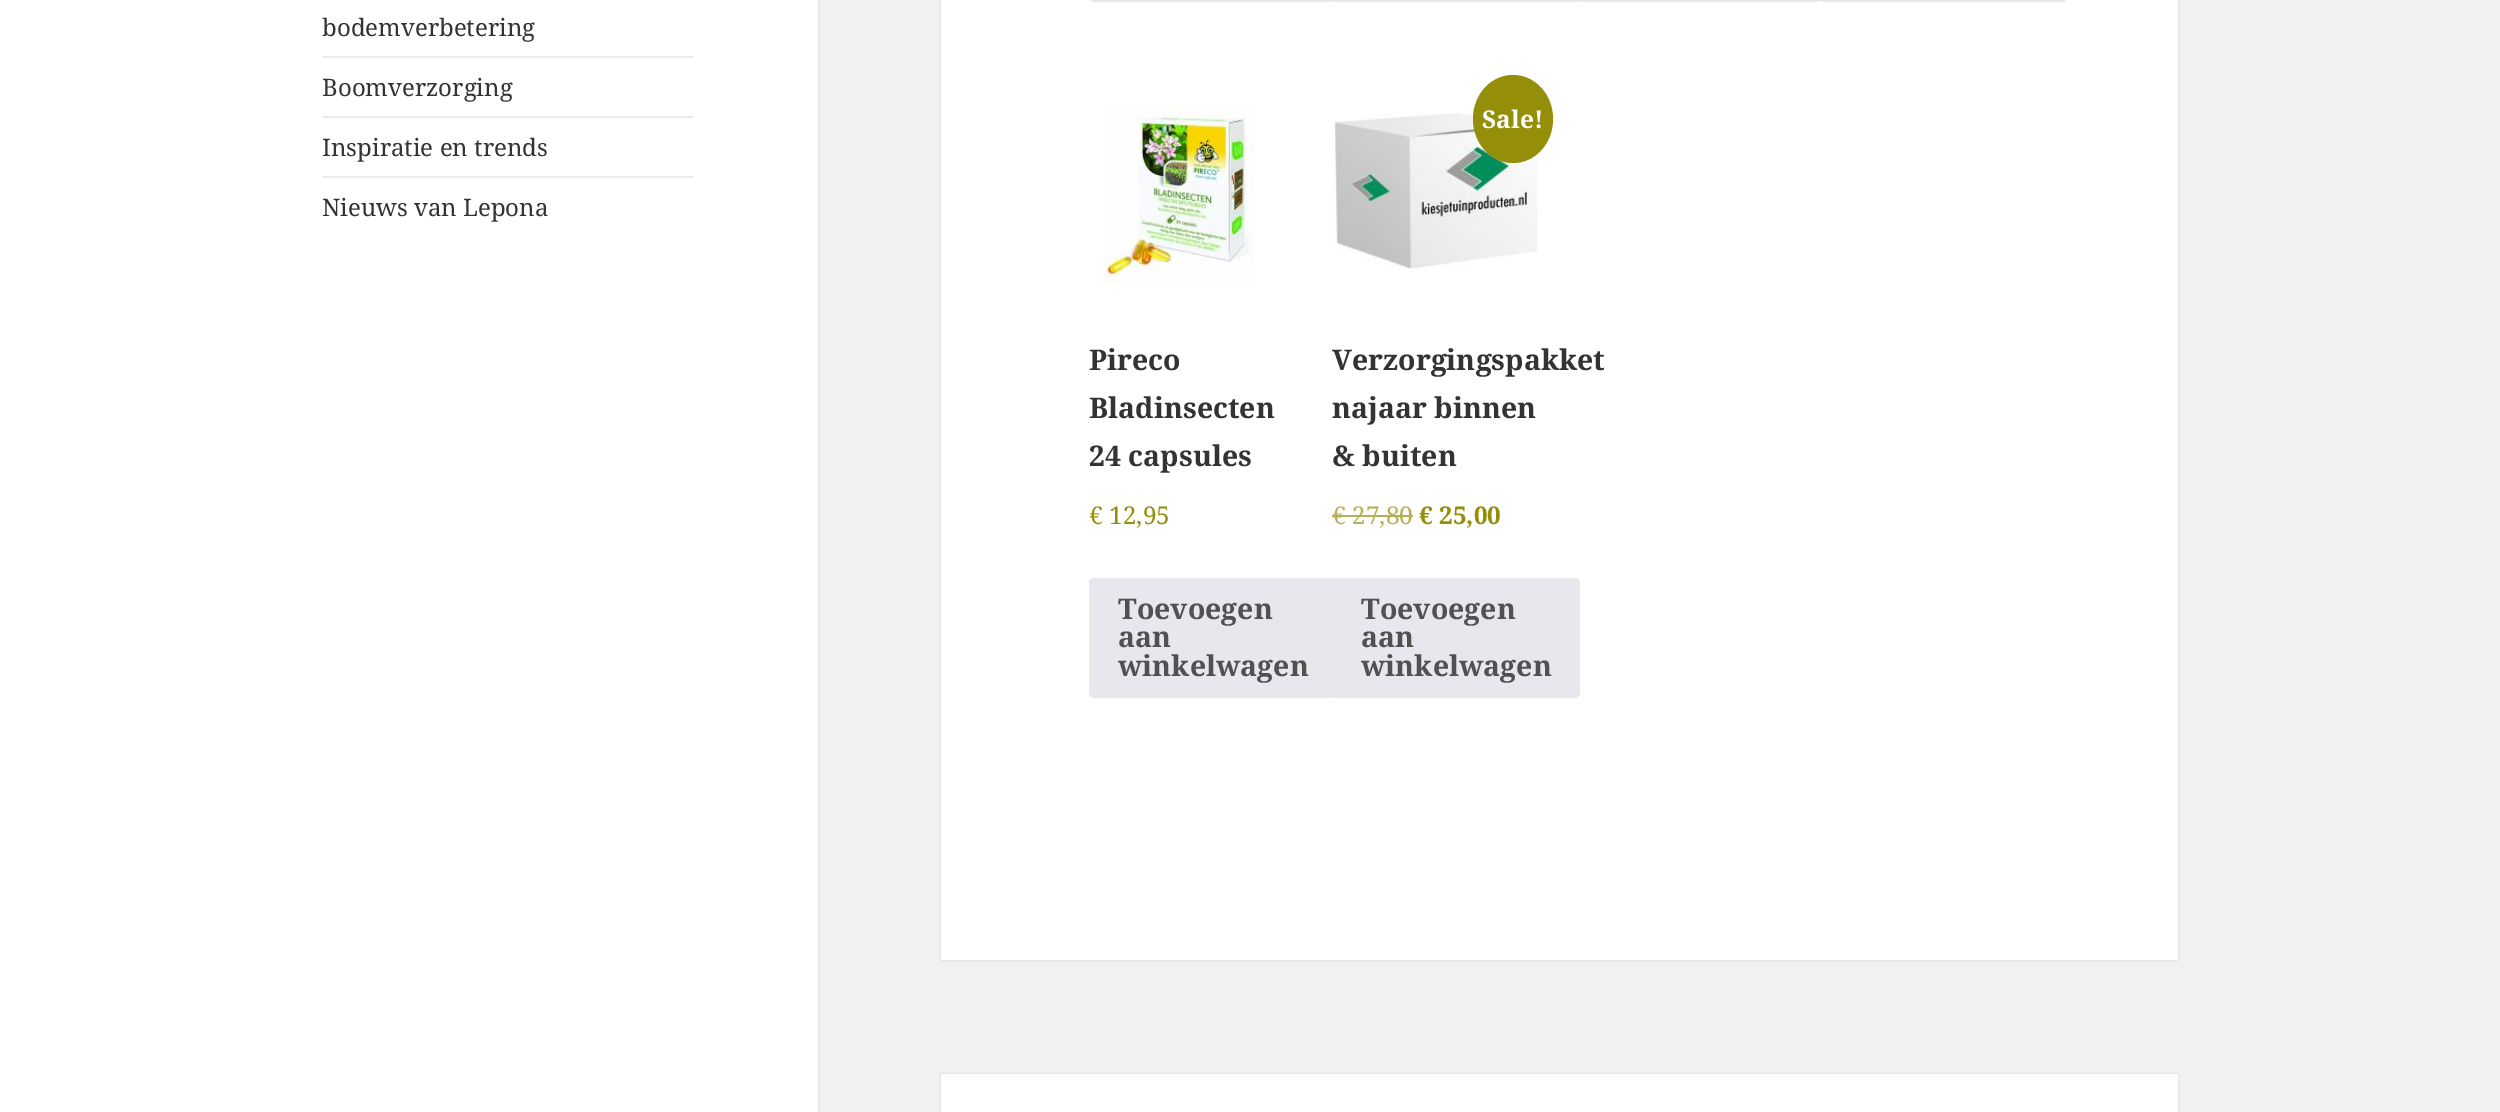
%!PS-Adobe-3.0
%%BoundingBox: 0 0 2500 1112
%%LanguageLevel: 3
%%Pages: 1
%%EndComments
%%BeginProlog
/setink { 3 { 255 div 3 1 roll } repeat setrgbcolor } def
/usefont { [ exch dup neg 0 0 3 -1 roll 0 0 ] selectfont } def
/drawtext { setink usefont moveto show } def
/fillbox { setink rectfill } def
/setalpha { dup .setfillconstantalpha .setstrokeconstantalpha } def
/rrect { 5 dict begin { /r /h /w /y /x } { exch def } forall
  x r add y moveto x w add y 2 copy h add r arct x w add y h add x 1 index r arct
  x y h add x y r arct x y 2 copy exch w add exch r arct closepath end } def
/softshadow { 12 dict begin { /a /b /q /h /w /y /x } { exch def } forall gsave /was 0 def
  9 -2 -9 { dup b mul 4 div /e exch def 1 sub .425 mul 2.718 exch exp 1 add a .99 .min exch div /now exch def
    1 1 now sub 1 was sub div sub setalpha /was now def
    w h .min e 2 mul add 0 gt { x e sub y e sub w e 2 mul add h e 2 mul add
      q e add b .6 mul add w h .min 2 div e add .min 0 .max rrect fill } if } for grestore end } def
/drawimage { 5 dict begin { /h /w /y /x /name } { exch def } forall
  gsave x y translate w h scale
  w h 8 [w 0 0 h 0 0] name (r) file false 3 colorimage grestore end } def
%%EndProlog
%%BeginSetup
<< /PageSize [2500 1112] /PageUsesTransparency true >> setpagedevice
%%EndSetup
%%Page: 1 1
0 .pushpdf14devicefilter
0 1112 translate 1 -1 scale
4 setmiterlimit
0 0 2500 1112 241 241 241 fillbox
0 0 0 setink
0 0 818 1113 0 1 0.15 softshadow
0 0 818 1112 255 255 255 fillbox
(bodemverbetering) 322 36 /NotoSerif-Regular 24 51 51 51 drawtext
323 56 370 2 235 235 235 fillbox
(Boomverzorging) 322 96 /NotoSerif-Regular 24 51 51 51 drawtext
323 116 370 2 235 235 235 fillbox
(Inspiratie en trends) 322 156 /NotoSerif-Regular 24 51 51 51 drawtext
323 176 370 2 235 235 235 fillbox
(Nieuws van Lepona) 322 216 /NotoSerif-Regular 24 51 51 51 drawtext
0 0 0 setink
941 -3 1237 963 0 1 0.15 softshadow
941 0 1237 960 255 255 255 fillbox
233 230 237 setink
1089 -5 248 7 5 rrect fill
1332 -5 248 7 5 rrect fill
1575 -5 248 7 5 rrect fill
1820 -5 247 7 5 rrect fill
(assets/img1.rgb) 1105 104 150 180 drawimage
(Pireco) 1089 370 /NotoSerif-Bold 28.5 51 51 51 drawtext
(Bladinsecten) 1089 418 /NotoSerif-Bold 28.5 51 51 51 drawtext
(24 capsules) 1089 466 /NotoSerif-Bold 28.5 51 51 51 drawtext
(€ 12,95) 1089 524 /NotoSerif-Regular 24.5 149 142 9 drawtext
233 230 237 setink
1089 578 248 120 5 rrect fill
(Toevoegen) 1118 619 /NotoSerif-Bold 28.5 81 81 81 drawtext
(aan) 1118 647 /NotoSerif-Bold 28.5 81 81 81 drawtext
(winkelwagen) 1118 676 /NotoSerif-Bold 28.5 81 81 81 drawtext
(assets/img2.rgb) 1332 113 206 156 drawimage
149 142 9 setink
1513 75 moveto 1535 75 1553 94.5 1553 119 curveto 1553 143.5 1535 163 1513 163 curveto 1491 163 1473 143.5 1473 119 curveto 1473 94.5 1491 75 1513 75 curveto closepath fill
(Sale!) 1482 128 /NotoSerif-Bold 24.5 255 255 255 drawtext
(Verzorgingspakket) 1332 370 /NotoSerif-Bold 28.5 51 51 51 drawtext
(najaar binnen) 1332 418 /NotoSerif-Bold 28.5 51 51 51 drawtext
(& buiten) 1332 466 /NotoSerif-Bold 28.5 51 51 51 drawtext
(€ 27,80) 1332 524 /NotoSerif-Regular 24.5 181 176 83 drawtext
1332 515 81 2 181 176 83 fillbox
(€ 25,00) 1419 524 /NotoSerif-Bold 24.5 149 142 9 drawtext
233 230 237 setink
1332 578 248 120 5 rrect fill
(Toevoegen) 1361 619 /NotoSerif-Bold 28.5 81 81 81 drawtext
(aan) 1361 647 /NotoSerif-Bold 28.5 81 81 81 drawtext
(winkelwagen) 1361 676 /NotoSerif-Bold 28.5 81 81 81 drawtext
0 0 0 setink
941 1074 1237 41 0 1 0.15 softshadow
941 1074 1237 38 255 255 255 fillbox
.poppdf14devicefilter showpage
%%EOF
